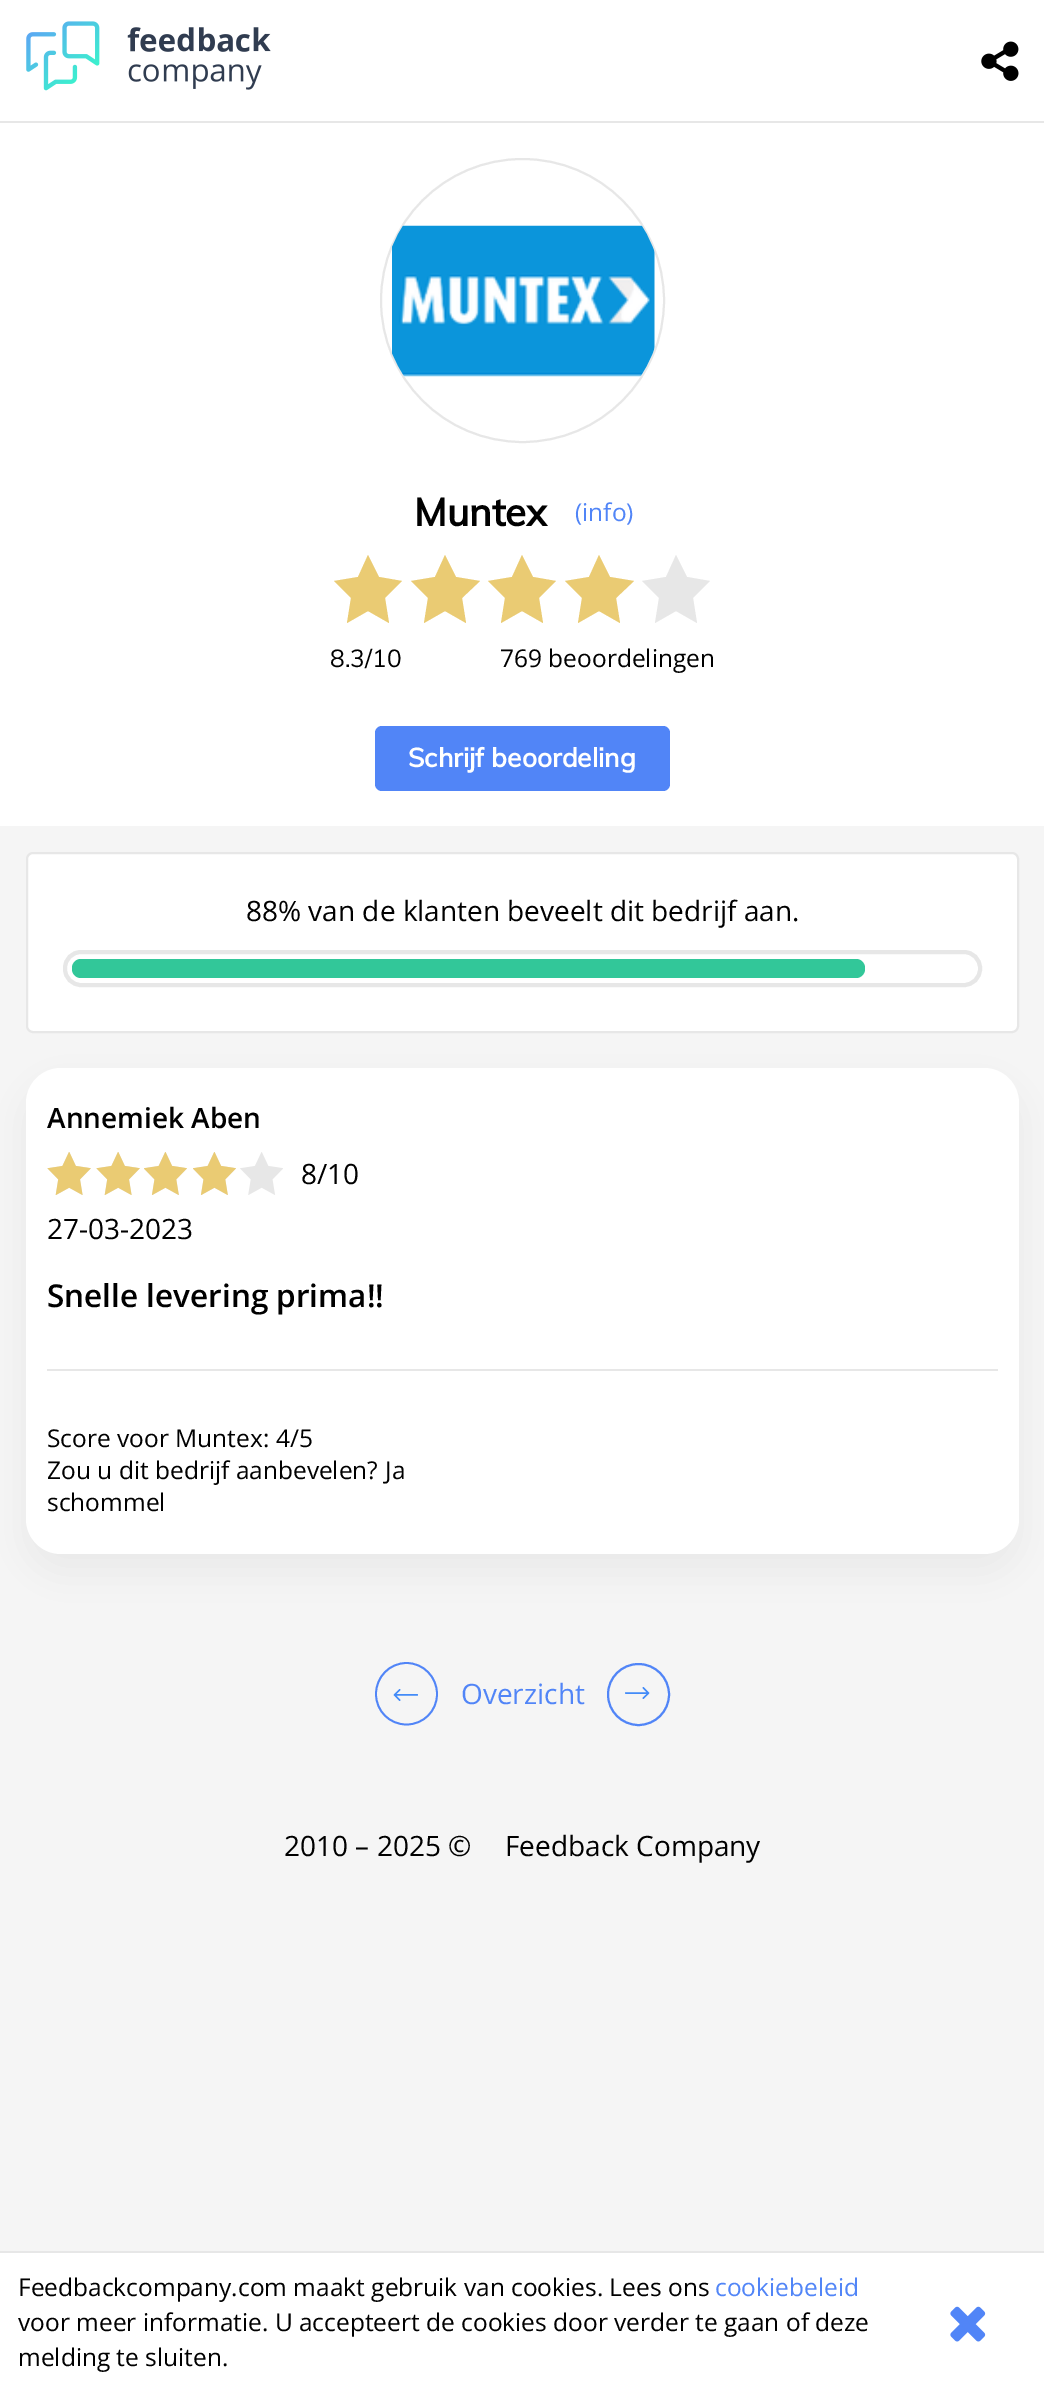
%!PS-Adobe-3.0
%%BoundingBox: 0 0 1044 2391
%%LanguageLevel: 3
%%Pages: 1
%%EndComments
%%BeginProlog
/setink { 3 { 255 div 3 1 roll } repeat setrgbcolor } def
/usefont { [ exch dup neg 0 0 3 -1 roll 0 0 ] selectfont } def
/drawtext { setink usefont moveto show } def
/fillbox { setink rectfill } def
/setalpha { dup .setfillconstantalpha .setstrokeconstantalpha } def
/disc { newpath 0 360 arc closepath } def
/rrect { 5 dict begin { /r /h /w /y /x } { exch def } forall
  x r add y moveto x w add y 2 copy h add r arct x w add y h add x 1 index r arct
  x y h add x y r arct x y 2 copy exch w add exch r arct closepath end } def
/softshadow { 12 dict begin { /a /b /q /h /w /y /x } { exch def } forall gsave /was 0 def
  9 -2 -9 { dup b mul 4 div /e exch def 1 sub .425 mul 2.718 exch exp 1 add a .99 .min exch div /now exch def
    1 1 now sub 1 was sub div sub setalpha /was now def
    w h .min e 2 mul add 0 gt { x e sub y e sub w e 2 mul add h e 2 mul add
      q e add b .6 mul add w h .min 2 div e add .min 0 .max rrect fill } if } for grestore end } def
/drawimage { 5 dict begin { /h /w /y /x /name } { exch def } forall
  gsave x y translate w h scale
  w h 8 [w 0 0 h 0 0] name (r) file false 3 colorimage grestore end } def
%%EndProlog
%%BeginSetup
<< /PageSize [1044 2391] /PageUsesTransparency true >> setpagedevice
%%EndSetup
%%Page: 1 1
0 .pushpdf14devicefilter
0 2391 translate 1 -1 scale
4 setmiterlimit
0 0 1044 2391 245 245 245 fillbox
0 0 1044 121 255 255 255 fillbox
0 121 1044 2 231 231 231 fillbox
(assets/img1.rgb) 26 21 245 70 drawimage
(assets/img2.rgb) 981 41 38 40 drawimage
0 123 1044 703 255 255 255 fillbox
231 231 231 setink
2 setlinewidth
522.5 300.5 141.5 disc stroke
(assets/img3.rgb) 392 225 263 152 drawimage
(Muntex) 414 526 /Muli-Bold 38.5 0 0 0 drawtext
(\(info\)) 575 521 /OpenSans-Regular 24.5 81 133 247 drawtext
234 203 115 setink
334 555 moveto 402 555 lineto 402 623 lineto 334 623 lineto closepath 334 555 moveto 402 555 lineto 402 623 lineto 334 623 lineto closepath 368 555 moveto 379 577 lineto 402 581 lineto 385 598 lineto 389 623 lineto 368 611 lineto 347 623 lineto 351 598 lineto 334 581 lineto 358 577 lineto closepath eofill
411 555 moveto 480 555 lineto 480 623 lineto 411 623 lineto closepath 411 555 moveto 480 555 lineto 480 623 lineto 411 623 lineto closepath 445 555 moveto 456 577 lineto 480 581 lineto 462 598 lineto 466 623 lineto 445 611 lineto 424 623 lineto 428 598 lineto 411 581 lineto 435 577 lineto closepath eofill
488 555 moveto 556 555 lineto 556 623 lineto 488 623 lineto closepath 488 555 moveto 556 555 lineto 556 623 lineto 488 623 lineto closepath 522 555 moveto 533 577 lineto 556 581 lineto 539 598 lineto 543 623 lineto 522 611 lineto 501 623 lineto 505 598 lineto 488 581 lineto 512 577 lineto closepath eofill
565 555 moveto 634 555 lineto 634 623 lineto 565 623 lineto closepath 565 555 moveto 634 555 lineto 634 623 lineto 565 623 lineto closepath 599 555 moveto 610 577 lineto 634 581 lineto 616 598 lineto 620 623 lineto 599 611 lineto 578 623 lineto 582 598 lineto 565 581 lineto 589 577 lineto closepath eofill
231 231 231 setink
642 555 moveto 710 555 lineto 710 623 lineto 642 623 lineto closepath 642 555 moveto 710 555 lineto 710 623 lineto 642 623 lineto closepath 676 555 moveto 687 577 lineto 710 581 lineto 693 598 lineto 697 623 lineto 676 611 lineto 655 623 lineto 659 598 lineto 642 581 lineto 666 577 lineto closepath eofill
(8.3/10) 330 667 /Muli-Regular 24.5 0 0 0 drawtext
(769 beoordelingen) 500 667 /OpenSans-Regular 24.5 0 0 0 drawtext
81 133 247 setink
375 726 295 65 7 rrect fill
(Schrijf beoordeling) 408 767 /Muli-Bold 26.25 255 255 255 drawtext
27 853 991 179 6 rrect gsave fill grestore
231 231 231 setink
stroke
(88% van de klanten beveelt dit bedrijf aan.) 246 921 /OpenSans-Regular 28 0 0 0 drawtext
231 231 231 setink
4 setlinewidth
65 952 915 33 16 rrect stroke
50 199 153 setink
72 959 793 19 9 rrect fill
30 30 30 setink
26 1085 993 487 35 17.5 0.05 softshadow
255 255 255 setink
26 1068 993 486 35 rrect fill
(Annemiek Aben) 47 1128 /OpenSans-SemiBold 28 0 0 0 drawtext
(assets/img4.rgb) 47 1152 44 43 drawimage
(assets/img5.rgb) 47 1152 44 43 drawimage
(assets/img4.rgb) 96 1152 44 43 drawimage
(assets/img5.rgb) 96 1152 44 43 drawimage
(assets/img6.rgb) 144 1152 43 43 drawimage
(assets/img7.rgb) 144 1152 43 43 drawimage
(assets/img6.rgb) 193 1152 43 43 drawimage
(assets/img7.rgb) 193 1152 43 43 drawimage
(assets/img8.rgb) 240 1152 43 43 drawimage
(8/10) 301 1184 /OpenSans-Regular 28 0 0 0 drawtext
(27-03-2023) 47 1239 /OpenSans-Regular 28 0 0 0 drawtext
(Snelle levering prima!!) 47 1307 /OpenSans-SemiBold 31.5 0 0 0 drawtext
47 1369 951 2 231 231 231 fillbox
(Score voor Muntex:) 47 1447 /OpenSans-Regular 24.5 0 0 0 drawtext
(4/5) 276 1447 /OpenSans-Regular 24.5 0 0 0 drawtext
(Zou u dit bedrijf aanbevelen?) 47 1479 /OpenSans-Regular 24.5 0 0 0 drawtext
(Ja) 385 1479 /OpenSans-Regular 24.5 0 0 0 drawtext
(schommel) 47 1511 /OpenSans-Regular 24.5 0 0 0 drawtext
81 133 247 setink
1.8 setlinewidth
406.5 1724.5 moveto 389.5 1724.5 376 1711 376 1694 curveto 376 1677 389.5 1663 406.5 1663 curveto 423.5 1663 437 1677 437 1694 curveto 437 1711 423.5 1724.5 406.5 1724.5 curveto closepath stroke
(assets/img9.rgb) 393 1689 25 12 drawimage
(Overzicht) 461 1704 /OpenSans-Regular 28 81 133 247 drawtext
2 setlinewidth
638.5 1694.5 30.5 disc stroke
(assets/img10.rgb) 625 1687 25 12 drawimage
(2010 – 2025 ©) 284 1856 /OpenSans-Regular 28 0 0 0 drawtext
(Feedback Company) 505 1856 /OpenSans-Regular 28 0 0 0 drawtext
0 2253 1044 138 255 255 255 fillbox
0 2251 1044 2 231 231 231 fillbox
(Feedbackcompany.com maakt gebruik van cookies. Lees ons) 18 2296 /OpenSans-Regular 24.5 0 0 0 drawtext
(cookiebeleid) 715 2296 /OpenSans-Regular 24.5 81 133 247 drawtext
(voor meer informatie. U accepteert de cookies door verder te gaan of deze) 18 2331 /OpenSans-Regular 24.5 0 0 0 drawtext
(melding te sluiten.) 18 2366 /OpenSans-Regular 24.5 0 0 0 drawtext
(assets/img11.rgb) 950 2306 36 36 drawimage
.poppdf14devicefilter showpage
%%EOF
